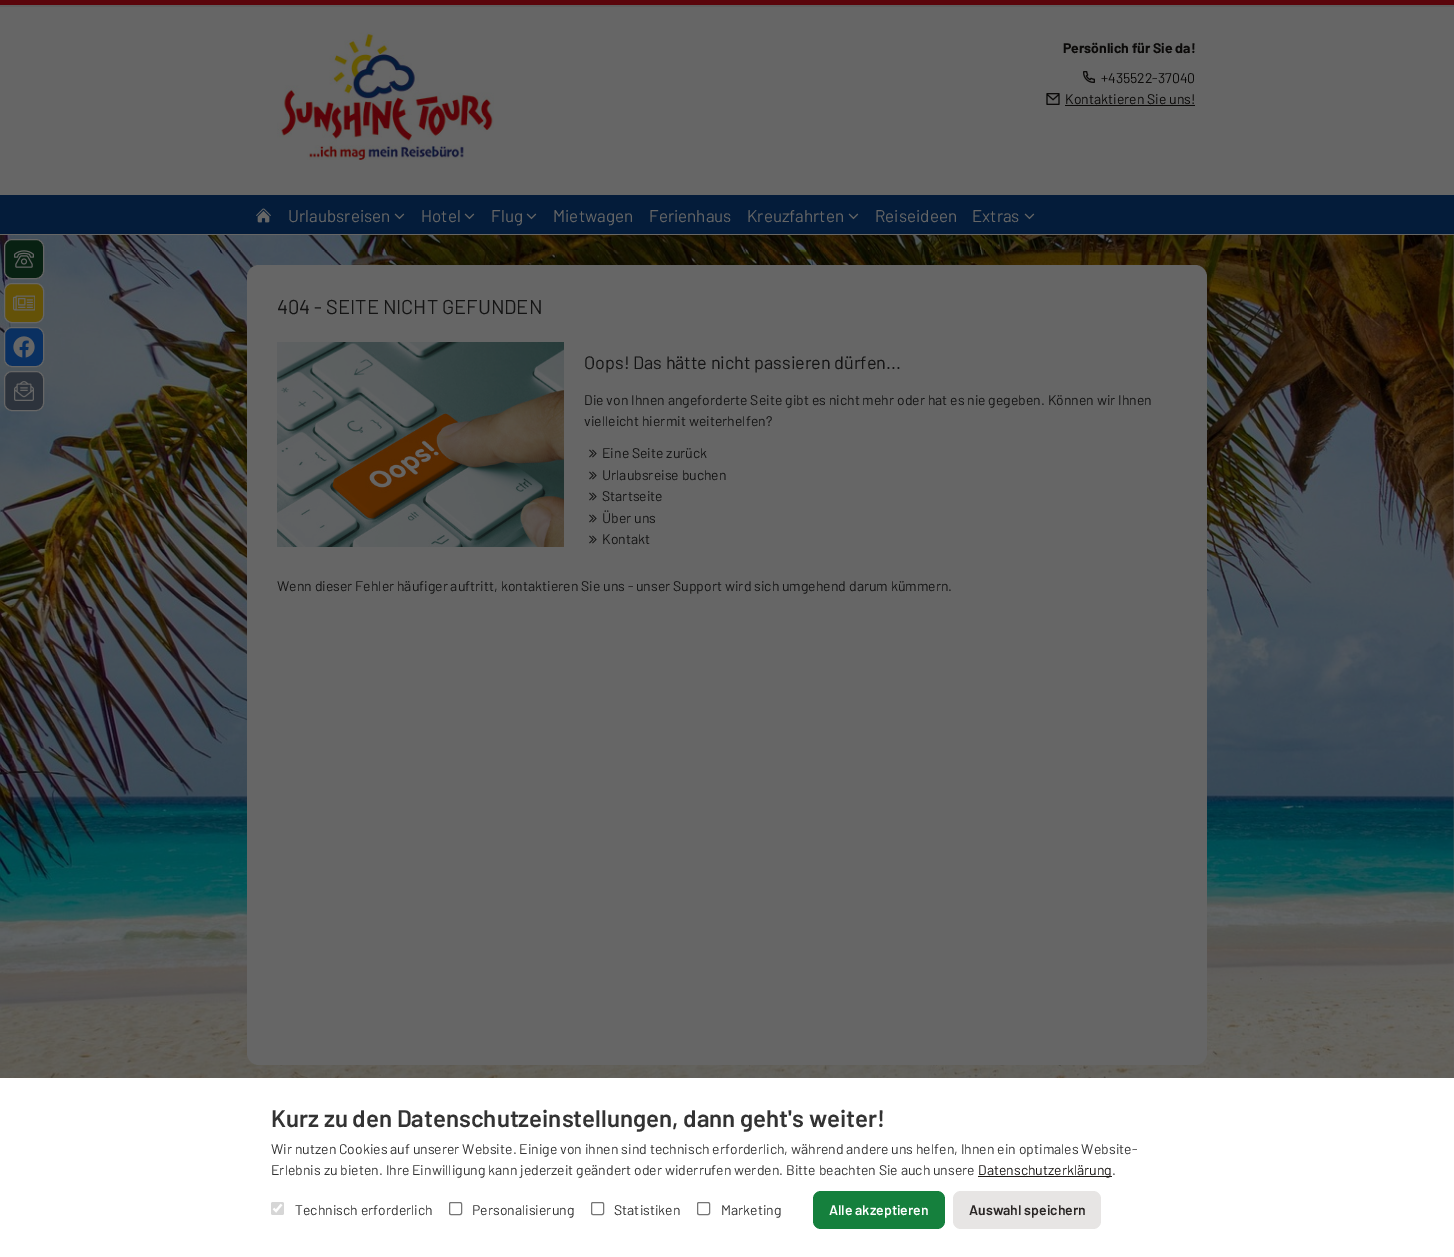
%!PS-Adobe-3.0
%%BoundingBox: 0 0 1454 1257
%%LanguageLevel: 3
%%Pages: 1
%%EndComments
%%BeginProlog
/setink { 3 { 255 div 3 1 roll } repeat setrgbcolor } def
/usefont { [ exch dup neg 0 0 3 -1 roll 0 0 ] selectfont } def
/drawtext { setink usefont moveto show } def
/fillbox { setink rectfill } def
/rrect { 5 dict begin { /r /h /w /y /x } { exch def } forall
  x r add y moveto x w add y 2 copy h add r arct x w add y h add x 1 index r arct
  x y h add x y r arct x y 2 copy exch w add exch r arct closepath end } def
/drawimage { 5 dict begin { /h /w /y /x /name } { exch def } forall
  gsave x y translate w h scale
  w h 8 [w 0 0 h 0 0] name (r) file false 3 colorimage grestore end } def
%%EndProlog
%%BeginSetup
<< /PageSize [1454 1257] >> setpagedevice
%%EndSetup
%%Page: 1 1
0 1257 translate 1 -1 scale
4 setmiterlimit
0 0 1454 1257 102 102 102 fillbox
0 5 1454 2 95 95 95 fillbox
0 0 1454 5 90 5 11 fillbox
(assets/img1.rgb) 277 32 217 128 drawimage
(Persönlich für Sie da!) 1063 53 /Barlow-Bold 14 11 10 9 drawtext
(assets/img2.rgb) 1083 71 12 12 drawimage
(+435522-37040) 1101 83 /Barlow-Regular 14 11 10 9 drawtext
(assets/img3.rgb) 1046 93 14 12 drawimage
(Kontaktieren Sie uns!) 1065 104 /Barlow-Regular 14 11 10 9 drawtext
1065 105 130 1 11 10 9 fillbox
0 195 1454 39 4 28 58 fillbox
(assets/img4.rgb) 256 208 15 15 drawimage
(Urlaubsreisen) 288 222 /Barlow-Regular 17 102 102 102 drawtext
(assets/img5.rgb) 394 213 11 7 drawimage
(Hotel) 421 222 /Barlow-Regular 17 102 102 102 drawtext
(assets/img5.rgb) 464 213 11 7 drawimage
(Flug) 491 222 /Barlow-Regular 17 102 102 102 drawtext
(assets/img5.rgb) 526 213 11 7 drawimage
(Mietwagen) 553 222 /Barlow-Regular 17 102 102 102 drawtext
(Ferienhaus) 649 222 /Barlow-Regular 17 102 102 102 drawtext
(Kreuzfahrten) 747 222 /Barlow-Regular 17 102 102 102 drawtext
(assets/img5.rgb) 848 213 11 7 drawimage
(Reiseideen) 875 222 /Barlow-Regular 17 102 102 102 drawtext
(Extras) 972 222 /Barlow-Regular 17 102 102 102 drawtext
(assets/img5.rgb) 1024 213 11 7 drawimage
(assets/img10.rgb) 0 235 1454 843 drawimage
8 33 18 setink
4.5 239.5 39 39 7.5 rrect gsave fill grestore
102 102 102 setink
stroke
(assets/img6.rgb) 14 250 20 18 drawimage
100 82 8 setink
4.5 283.5 39 39 7.5 rrect gsave fill grestore
102 102 102 setink
stroke
(assets/img7.rgb) 13 295 22 16 drawimage
10 48 97 setink
4.5 327.5 39 39 7.5 rrect gsave fill grestore
102 102 102 setink
stroke
(assets/img8.rgb) 13 336 22 22 drawimage
45 51 60 setink
4.5 371.5 39 39 7.5 rrect gsave fill grestore
102 102 102 setink
stroke
(assets/img9.rgb) 14 381 20 20 drawimage
247 265 960 800 12 rrect fill
(404 - SEITE NICHT GEFUNDEN) 277 314 /Barlow-Regular 20 20 20 20 drawtext
(assets/img11.rgb) 277 342 287 205 drawimage
(Oops! Das hätte nicht passieren dürfen...) 584 369 /Barlow-Regular 18 20 20 20 drawtext
(Die von Ihnen angeforderte Seite gibt es nicht mehr oder hat es nie gegeben. Können wir Ihnen) 584 405 /Barlow-Regular 14 20 20 20 drawtext
(vielleicht hiermit weiterhelfen?) 584 426 /Barlow-Regular 14 20 20 20 drawtext
(assets/img12.rgb) 589 449 8 9 drawimage
(Eine Seite zurück) 602 458 /Barlow-Regular 14 20 20 20 drawtext
(assets/img12.rgb) 589 471 8 9 drawimage
(Urlaubsreise buchen) 602 480 /Barlow-Regular 14 20 20 20 drawtext
(assets/img12.rgb) 589 492 8 9 drawimage
(Startseite) 602 501 /Barlow-Regular 14 20 20 20 drawtext
(assets/img12.rgb) 589 514 8 9 drawimage
(Über uns) 602 523 /Barlow-Regular 14 20 20 20 drawtext
(assets/img12.rgb) 589 535 8 9 drawimage
(Kontakt) 602 544 /Barlow-Regular 14 20 20 20 drawtext
(Wenn dieser Fehler häufiger auftritt, kontaktieren Sie uns - unser Support wird sich umgehend darum kümmern.) 277 591 /Barlow-Regular 14 20 20 20 drawtext
0 1078 1454 179 255 255 255 fillbox
(Kurz zu den Datenschutzeinstellungen, dann geht's weiter!) 271 1127 /Barlow-SemiBold 24 51 51 51 drawtext
(Wir nutzen Cookies auf unserer Website. Einige von ihnen sind technisch erforderlich, während andere uns helfen, Ihnen ein optimales Website-) 271 1154 /Barlow-Regular 14 51 51 51 drawtext
(Erlebnis zu bieten. Ihre Einwilligung kann jederzeit geändert oder widerrufen werden. Bitte beachten Sie auch unsere) 271 1175 /Barlow-Regular 14 51 51 51 drawtext
978 1176 134 1 28 25 23 fillbox
(Datenschutzerklärung) 978 1175 /Barlow-Regular 14 28 25 23 drawtext
(.) 1112 1175 /Barlow-Regular 14 51 51 51 drawtext
214 214 214 setink
271 1202 13 13 2 rrect fill
255 255 255 setink
2.1 setlinewidth
273.5 1208.5 moveto 276 1211 lineto 281.5 1204.5 lineto stroke
(Technisch erforderlich) 295 1215 /Barlow-Regular 14 51 51 51 drawtext
118 118 118 setink
1 setlinewidth
449.5 1202.5 12 12 1.5 rrect stroke
(Personalisierung) 472 1215 /Barlow-Regular 14 51 51 51 drawtext
118 118 118 setink
591.5 1202.5 12 12 1.5 rrect stroke
(Statistiken) 614 1215 /Barlow-Regular 14 51 51 51 drawtext
118 118 118 setink
697.5 1202.5 12 12 1.5 rrect stroke
(Marketing) 721 1215 /Barlow-Regular 14 51 51 51 drawtext
21 128 61 setink
813 1191 132 38 8 rrect fill
(Alle akzeptieren) 829 1215 /Barlow-SemiBold 14 255 255 255 drawtext
231 229 228 setink
953 1191 148 38 8 rrect fill
(Auswahl speichern) 969 1215 /Barlow-SemiBold 14 41 37 36 drawtext
showpage
%%EOF
